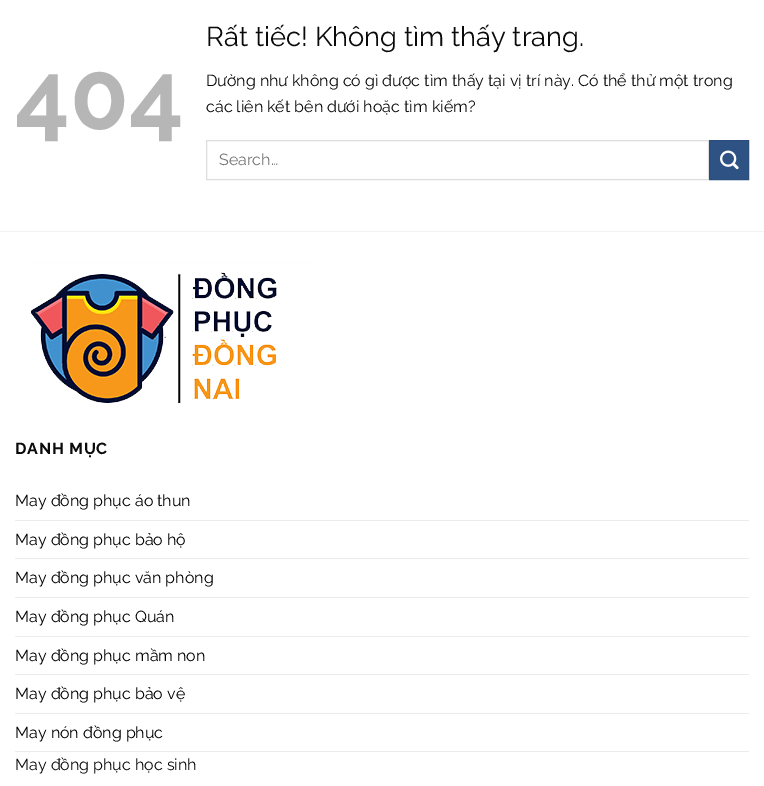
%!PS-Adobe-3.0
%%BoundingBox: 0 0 764 786
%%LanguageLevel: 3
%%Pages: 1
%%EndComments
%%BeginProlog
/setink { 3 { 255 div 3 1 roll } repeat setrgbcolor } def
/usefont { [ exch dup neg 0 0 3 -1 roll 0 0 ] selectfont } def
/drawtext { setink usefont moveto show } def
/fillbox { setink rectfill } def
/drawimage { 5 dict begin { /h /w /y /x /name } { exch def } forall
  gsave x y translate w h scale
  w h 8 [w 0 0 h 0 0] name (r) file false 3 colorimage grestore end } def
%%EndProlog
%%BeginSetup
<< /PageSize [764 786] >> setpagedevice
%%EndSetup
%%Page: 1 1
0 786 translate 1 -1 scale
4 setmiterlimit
0 0 764 786 255 255 255 fillbox
(404) 15 129 /Raleway-Bold 96 182 182 182 drawtext
(Rất tiếc! Không tìm thấy trang.) 206 46 /Raleway-Regular 27.25 10 10 10 drawtext
(Dường như không có gì được tìm thấy tại vị trí này. Có thể thử một trong) 206 86 /Raleway-Regular 16 10 10 10 drawtext
(các liên kết bên dưới hoặc tìm kiếm?) 206 112 /Raleway-Regular 16 10 10 10 drawtext
221 221 221 setink
206.5 140.5 502 39 rectstroke
(Search…) 219 165 /Raleway-Regular 16 117 117 117 drawtext
46 82 132 setink
709.5 140.5 moveto 748.5 140.5 lineto 748.5 179.5 lineto 709.5 179.5 lineto closepath gsave fill grestore
44 78 125 setink
stroke
(assets/img1.rgb) 720 150 19 20 drawimage
0 231 764 1 242 242 242 fillbox
(assets/img2.rgb) 30 262 285 141 drawimage
/Raleway-Bold 16 usefont
10 10 10 setink
15 454 moveto 0.75 0 (DANH MỤC) ashow
(May đồng phục áo thun) 15 506 /Raleway-Regular 16 0 0 0 drawtext
15 520 734 1 236 236 236 fillbox
(May đồng phục bảo hộ) 15 545 /Raleway-Regular 16 0 0 0 drawtext
15 558 734 1 236 236 236 fillbox
(May đồng phục văn phòng) 15 583 /Raleway-Regular 16 0 0 0 drawtext
15 597 734 1 236 236 236 fillbox
(May đồng phục Quán) 15 622 /Raleway-Regular 16 0 0 0 drawtext
15 636 734 1 236 236 236 fillbox
(May đồng phục mầm non) 15 661 /Raleway-Regular 16 0 0 0 drawtext
15 674 734 1 236 236 236 fillbox
(May đồng phục bảo vệ) 15 699 /Raleway-Regular 16 0 0 0 drawtext
15 713 734 1 236 236 236 fillbox
(May nón đồng phục) 15 738 /Raleway-Regular 16 0 0 0 drawtext
15 751 734 1 236 236 236 fillbox
(May đồng phục học sinh) 15 770 /Raleway-Regular 16 10 10 10 drawtext
showpage
%%EOF
